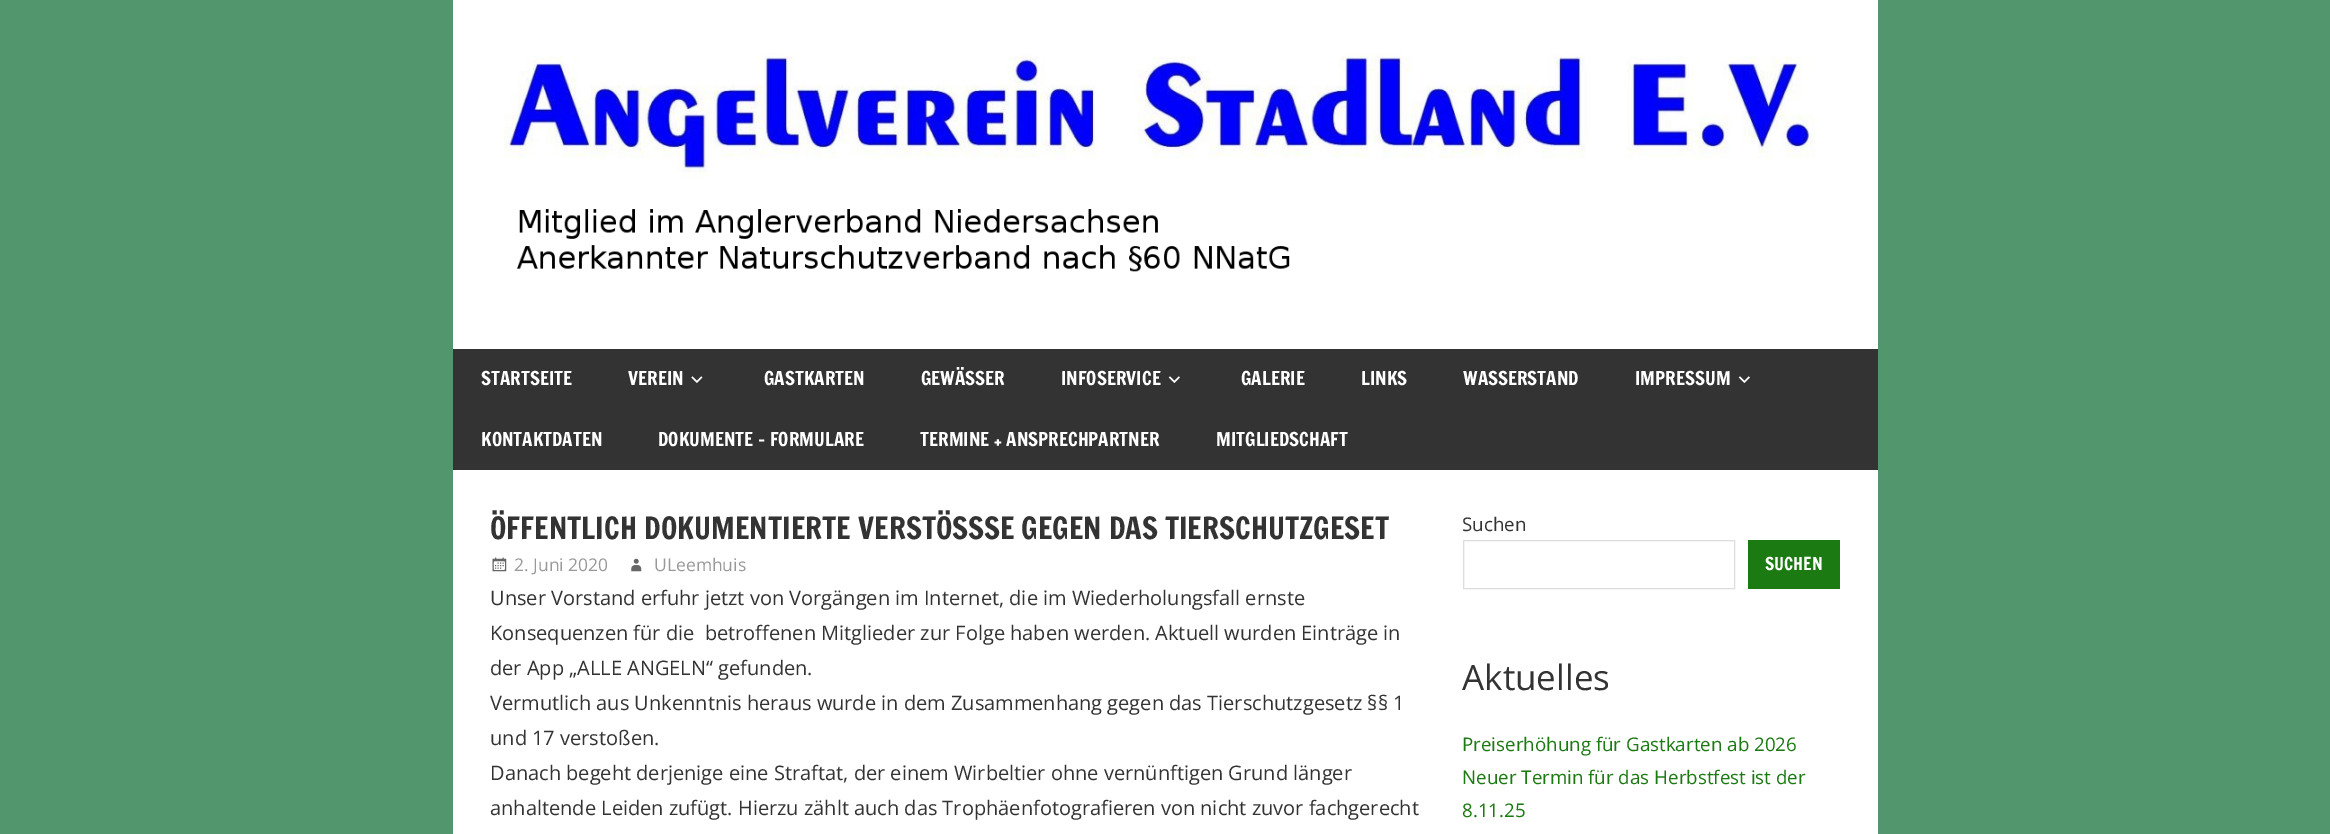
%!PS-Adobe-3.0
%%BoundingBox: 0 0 2330 834
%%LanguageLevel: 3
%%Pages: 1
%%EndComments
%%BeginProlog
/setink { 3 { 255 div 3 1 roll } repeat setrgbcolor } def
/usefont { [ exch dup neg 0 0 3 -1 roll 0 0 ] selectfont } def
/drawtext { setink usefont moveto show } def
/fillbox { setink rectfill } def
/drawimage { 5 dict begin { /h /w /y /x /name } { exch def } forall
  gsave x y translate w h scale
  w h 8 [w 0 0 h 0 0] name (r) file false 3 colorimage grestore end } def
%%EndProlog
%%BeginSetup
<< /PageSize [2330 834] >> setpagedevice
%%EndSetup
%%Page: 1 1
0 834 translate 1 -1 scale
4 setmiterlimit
0 0 2330 834 82 150 109 fillbox
453 0 1425 834 255 255 255 fillbox
(assets/img1.rgb) 504 53 1311 219 drawimage
453 349 1425 121 51 51 51 fillbox
(STARTSEITE) 481 385 /FrancoisOne-Regular 18.75 255 255 255 drawtext
(VEREIN) 628 385 /FrancoisOne-Regular 18.75 255 255 255 drawtext
(assets/img2.rgb) 691 376 12 7 drawimage
(GASTKARTEN) 764 385 /FrancoisOne-Regular 18.75 255 255 255 drawtext
(GEWÄSSER) 921 385 /FrancoisOne-Regular 18.75 255 255 255 drawtext
(INFOSERVICE) 1061 385 /FrancoisOne-Regular 18.75 255 255 255 drawtext
(assets/img3.rgb) 1168 376 12 7 drawimage
(GALERIE) 1241 385 /FrancoisOne-Regular 18.75 255 255 255 drawtext
(LINKS) 1361 385 /FrancoisOne-Regular 18.75 255 255 255 drawtext
(WASSERSTAND) 1463 385 /FrancoisOne-Regular 18.75 255 255 255 drawtext
(IMPRESSUM) 1635 385 /FrancoisOne-Regular 18.75 255 255 255 drawtext
(assets/img3.rgb) 1738 376 12 7 drawimage
(KONTAKTDATEN) 481 446 /FrancoisOne-Regular 18.75 255 255 255 drawtext
(DOKUMENTE – FORMULARE) 658 446 /FrancoisOne-Regular 18.75 255 255 255 drawtext
(TERMINE + ANSPRECHPARTNER) 920 446 /FrancoisOne-Regular 18.75 255 255 255 drawtext
(MITGLIEDSCHAFT) 1216 446 /FrancoisOne-Regular 18.75 255 255 255 drawtext
(ÖFFENTLICH DOKUMENTIERTE VERSTÖSS) 490 539 /FrancoisOne-Regular 30 51 51 51 drawtext
984 539 moveto -0.5 0 32 (SE GEGEN DAS TIERSCHUTZGESET) widthshow
(assets/img4.rgb) 492 557 15 15 drawimage
(2. Juni 2020) 514 571 /OpenSans-Regular 17.5 153 153 153 drawtext
(assets/img5.rgb) 631 558 11 14 drawimage
(ULeemhuis) 654 571 /OpenSans-Regular 17.5 153 153 153 drawtext
(Unser Vorstand erfuhr jetzt von Vorgängen im Internet, die im Wiederholungsfall ernste) 490 605 /OpenSans-Regular 20 51 51 51 drawtext
(Konsequenzen für die  betroffenen Mitglieder zur Folge haben werden. Aktuell wurden Einträge in) 490 640 /OpenSans-Regular 20 51 51 51 drawtext
(der App „ALLE ANGELN“ gefunden.) 490 675 /OpenSans-Regular 20 51 51 51 drawtext
(Vermutlich aus Unkenntnis heraus wurde in dem Zusammenhang gegen das Tierschutzgesetz §§ 1) 490 710 /OpenSans-Regular 20 51 51 51 drawtext
(und 17 verstoßen.) 490 745 /OpenSans-Regular 20 51 51 51 drawtext
(Danach begeht derjenige eine Straftat, der einem Wirbeltier ohne vernünftigen Grund länger) 490 780 /OpenSans-Regular 20 51 51 51 drawtext
(anhaltende Leiden zufügt. Hierzu zählt auch das Trophäenfotografieren von nicht zuvor fachgerecht) 490 815 /OpenSans-Regular 20 51 51 51 drawtext
(Suchen) 1462 531 /OpenSans-Regular 18.75 51 51 51 drawtext
221 221 221 setink
1463.5 540.5 271 48 rectstroke
1748 540 92 49 27 122 17 fillbox
(SUCHEN) 1765 570 /FrancoisOne-Regular 17.5 255 255 255 drawtext
(Aktuelles) 1462 690 /OpenSans-Regular 35 51 51 51 drawtext
(Preiserhöhung für Gastkarten ab 2026) 1462 751 /OpenSans-Regular 18.75 27 122 17 drawtext
(Neuer Termin für das Herbstfest ist der) 1462 784 /OpenSans-Regular 18.75 27 122 17 drawtext
(8.11.25) 1462 817 /OpenSans-Regular 18.75 27 122 17 drawtext
showpage
%%EOF
